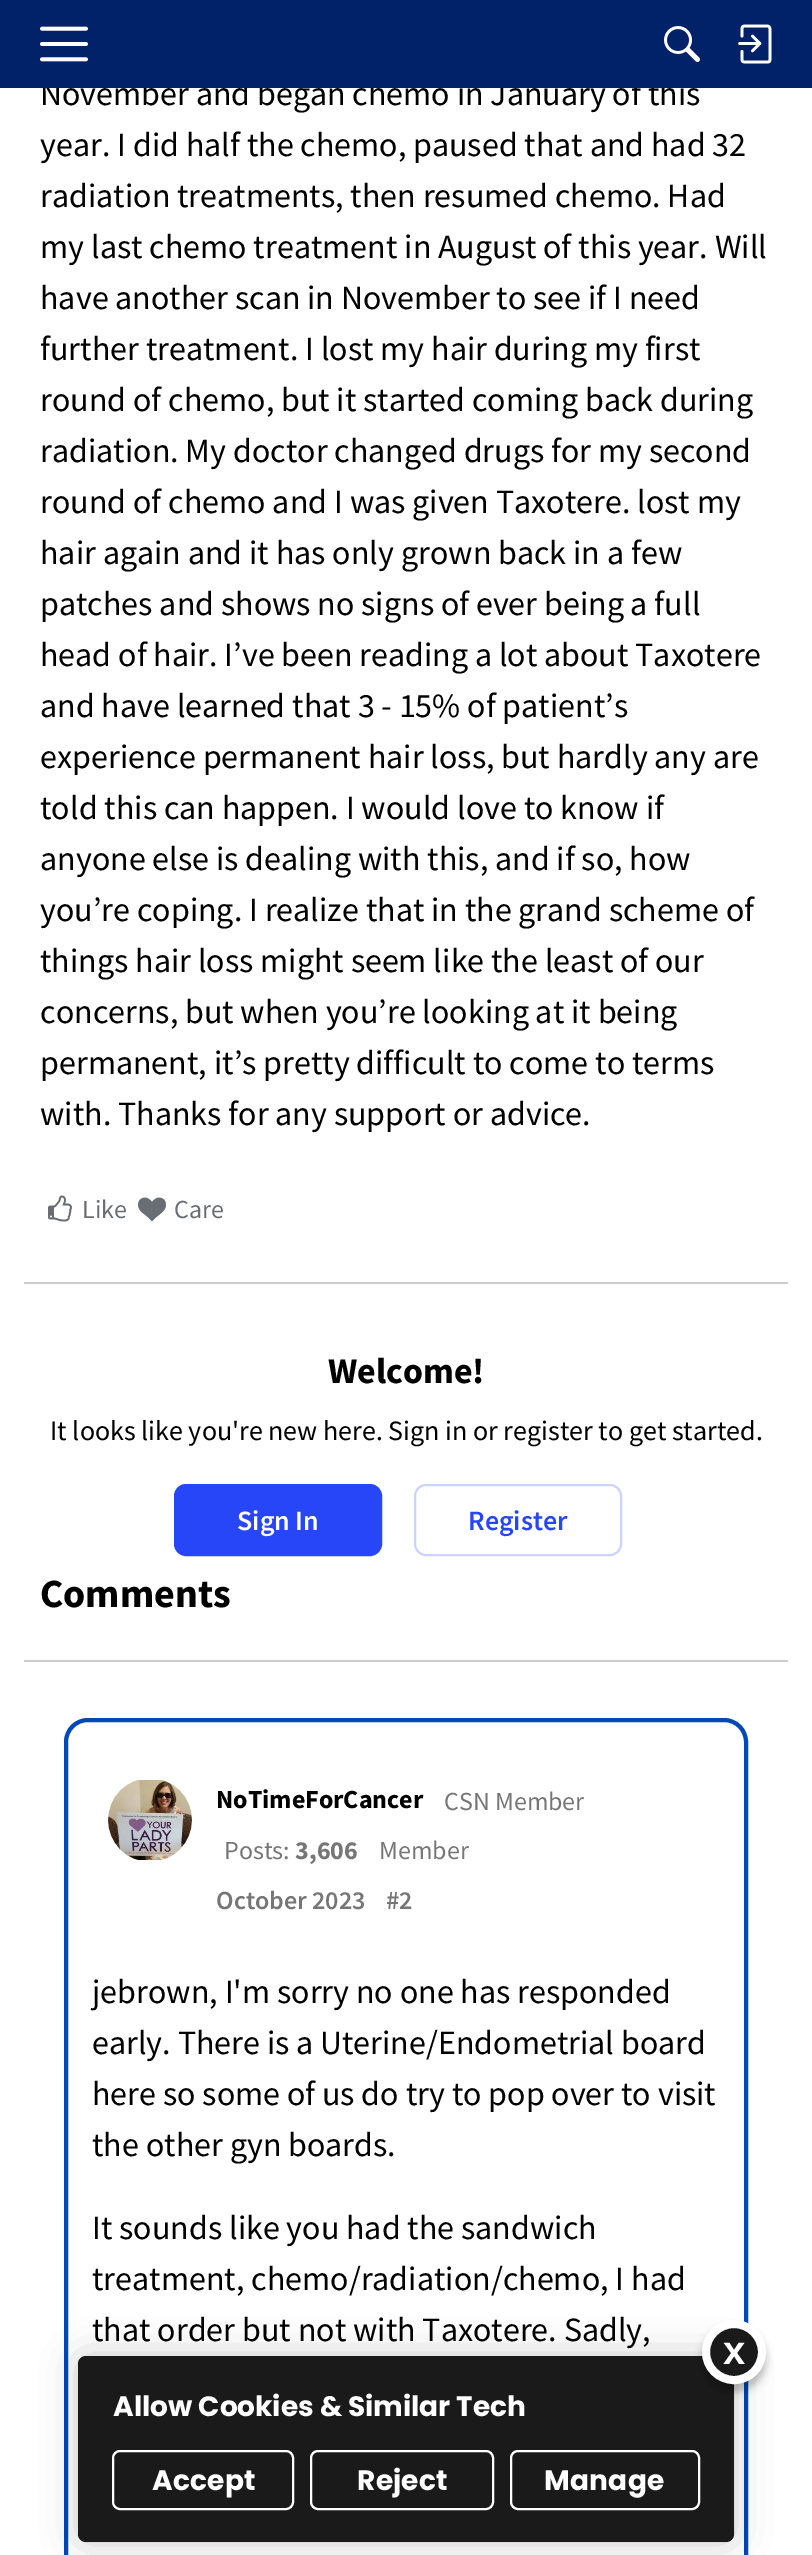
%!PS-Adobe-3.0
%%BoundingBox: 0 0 812 2555
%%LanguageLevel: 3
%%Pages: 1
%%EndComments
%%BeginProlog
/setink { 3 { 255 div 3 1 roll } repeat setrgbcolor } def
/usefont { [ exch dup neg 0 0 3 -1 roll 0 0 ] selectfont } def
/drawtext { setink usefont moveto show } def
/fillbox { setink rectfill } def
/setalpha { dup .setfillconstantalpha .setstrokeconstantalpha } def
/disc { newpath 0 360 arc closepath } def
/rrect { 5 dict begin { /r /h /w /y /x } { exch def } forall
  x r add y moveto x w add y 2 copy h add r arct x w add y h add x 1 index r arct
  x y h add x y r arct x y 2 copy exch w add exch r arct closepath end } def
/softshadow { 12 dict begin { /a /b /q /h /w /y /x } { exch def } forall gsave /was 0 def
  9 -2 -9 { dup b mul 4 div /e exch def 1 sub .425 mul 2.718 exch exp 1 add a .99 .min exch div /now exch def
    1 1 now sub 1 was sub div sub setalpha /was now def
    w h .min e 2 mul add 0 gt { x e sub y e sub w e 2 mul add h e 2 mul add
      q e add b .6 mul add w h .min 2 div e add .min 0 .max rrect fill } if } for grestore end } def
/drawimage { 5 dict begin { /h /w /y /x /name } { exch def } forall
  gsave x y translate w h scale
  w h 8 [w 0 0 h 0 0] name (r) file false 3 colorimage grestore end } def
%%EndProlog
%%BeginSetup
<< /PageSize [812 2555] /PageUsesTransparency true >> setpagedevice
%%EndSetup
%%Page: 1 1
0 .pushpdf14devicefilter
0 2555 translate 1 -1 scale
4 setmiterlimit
0 0 812 2555 255 255 255 fillbox
(November and began chemo in January of this) 40 105 /SourceSansPro-Regular 34 0 0 0 drawtext
0 0 812 88 1 33 105 fillbox
(assets/img1.rgb) 40 26 48 36 drawimage
(assets/img2.rgb) 664 26 36 36 drawimage
(assets/img3.rgb) 738 24 34 40 drawimage
(year. I did half the chemo, paused that and had 32) 40 156 /SourceSansPro-Regular 34 0 0 0 drawtext
(radiation treatments, then resumed chemo. Had) 40 207 /SourceSansPro-Regular 34 0 0 0 drawtext
(my last chemo treatment in August of this year. Will) 40 258 /SourceSansPro-Regular 34 0 0 0 drawtext
(have another scan in November to see if I need) 40 309 /SourceSansPro-Regular 34 0 0 0 drawtext
(further treatment. I lost my hair during my first) 40 360 /SourceSansPro-Regular 34 0 0 0 drawtext
(round of chemo, but it started coming back during) 40 411 /SourceSansPro-Regular 34 0 0 0 drawtext
(radiation. My doctor changed drugs for my second) 40 462 /SourceSansPro-Regular 34 0 0 0 drawtext
(round of chemo and I was given Taxotere. lost my) 40 513 /SourceSansPro-Regular 34 0 0 0 drawtext
(hair again and it has only grown back in a few) 40 564 /SourceSansPro-Regular 34 0 0 0 drawtext
(patches and shows no signs of ever being a full) 40 615 /SourceSansPro-Regular 34 0 0 0 drawtext
(head of hair. I’ve been reading a lot about Taxotere) 40 666 /SourceSansPro-Regular 34 0 0 0 drawtext
(and have learned that 3 - 15% of patient’s) 40 717 /SourceSansPro-Regular 34 0 0 0 drawtext
(experience permanent hair loss, but hardly any are) 40 768 /SourceSansPro-Regular 34 0 0 0 drawtext
(told this can happen. I would love to know if) 40 819 /SourceSansPro-Regular 34 0 0 0 drawtext
(anyone else is dealing with this, and if so, how) 40 870 /SourceSansPro-Regular 34 0 0 0 drawtext
(you’re coping. I realize that in the grand scheme of) 40 921 /SourceSansPro-Regular 34 0 0 0 drawtext
(things hair loss might seem like the least of our) 40 972 /SourceSansPro-Regular 34 0 0 0 drawtext
(concerns, but when you’re looking at it being) 40 1023 /SourceSansPro-Regular 34 0 0 0 drawtext
(permanent, it’s pretty difficult to come to terms) 40 1074 /SourceSansPro-Regular 34 0 0 0 drawtext
(with. Thanks for any support or advice.) 40 1125 /SourceSansPro-Regular 34 0 0 0 drawtext
(assets/img4.rgb) 48 1195 24 27 drawimage
(Like) 82 1218 /SourceSansPro-Regular 26 105 110 117 drawtext
(assets/img5.rgb) 138 1197 28 25 drawimage
(Care) 174 1218 /SourceSansPro-Regular 26 105 110 117 drawtext
24 1282 764 2 204 204 204 fillbox
(Welcome!) 328 1383 /SourceSansPro-Bold 36 0 0 0 drawtext
(It looks like you're new here. Sign in or register to get started.) 50 1440 /SourceSansPro-Regular 28 0 0 0 drawtext
39 70 248 setink
175 1485 206 70 11 rrect gsave fill grestore
2 setlinewidth
stroke
(Sign In) 237 1530 /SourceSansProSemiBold-SemiBold 28 255 255 255 drawtext
203 211 253 setink
415 1485 206 70 11 rrect stroke
(Register) 468 1530 /SourceSansProSemiBold-SemiBold 28 39 70 248 drawtext
(Comments) 40 1607 /SourceSansPro-Bold 40 0 0 0 drawtext
24 1660 764 2 204 204 204 fillbox
0 71 187 setink
4 setlinewidth
66 1720 680 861 22 rrect stroke
(assets/img6.rgb) 108 1780 84 80 drawimage
(NoTimeForCancer) 216 1808 /SourceSansPro-Bold 26 0 0 0 drawtext
(CSN Member) 444 1810 /SourceSansPro-Regular 26 118 118 118 drawtext
(Posts:) 224 1859 /SourceSansPro-Regular 26 118 118 118 drawtext
(3,606) 295 1859 /SourceSansPro-Bold 26 118 118 118 drawtext
(Member) 379 1859 /SourceSansPro-Regular 26 118 118 118 drawtext
(October 2023) 216 1909 /SourceSansProSemiBold-SemiBold 26 118 118 118 drawtext
(#2) 386 1909 /SourceSansProSemiBold-SemiBold 26 118 118 118 drawtext
(jebrown, I'm sorry no one has responded) 92 2003 /SourceSansPro-Regular 34 0 0 0 drawtext
(early. There is a Uterine/Endometrial board) 92 2054 /SourceSansPro-Regular 34 0 0 0 drawtext
(here so some of us do try to pop over to visit) 92 2105 /SourceSansPro-Regular 34 0 0 0 drawtext
(the other gyn boards.) 92 2156 /SourceSansPro-Regular 34 0 0 0 drawtext
(It sounds like you had the sandwich) 92 2239 /SourceSansPro-Regular 34 0 0 0 drawtext
(treatment, chemo/radiation/chemo, I had) 92 2290 /SourceSansPro-Regular 34 0 0 0 drawtext
(that order but not with Taxotere. Sadly,) 92 2341 /SourceSansPro-Regular 34 0 0 0 drawtext
78 2356 656 186 8 18 0.2 softshadow
26 26 26 setink
78 2356 656 186 8 rrect fill
0.2 setalpha
2 setlinewidth
79 2357 654 184 7 rrect stroke
1 setalpha
0 0 0 setink
702 2328 64 64 32 4 0.25 softshadow
26 26 26 setink
734 2352 28 disc gsave fill grestore
255 255 255 setink
8 setlinewidth
stroke
(x) 723 2364 /LiberationSans-Bold 40 255 255 255 drawtext
(Allow Cookies & Similar Tech) 113 2416 /Poppins-Bold 28 255 255 255 drawtext
2 setlinewidth
113 2451 180 58 7 rrect stroke
152 2490 moveto 0.25 0 (Accept) ashow
311 2451 182 58 7 rrect stroke
357 2490 moveto 0.25 0 (Reject) ashow
511 2451 188 58 7 rrect stroke
544 2490 moveto 0.25 0 (Manage) ashow
.poppdf14devicefilter showpage
%%EOF
